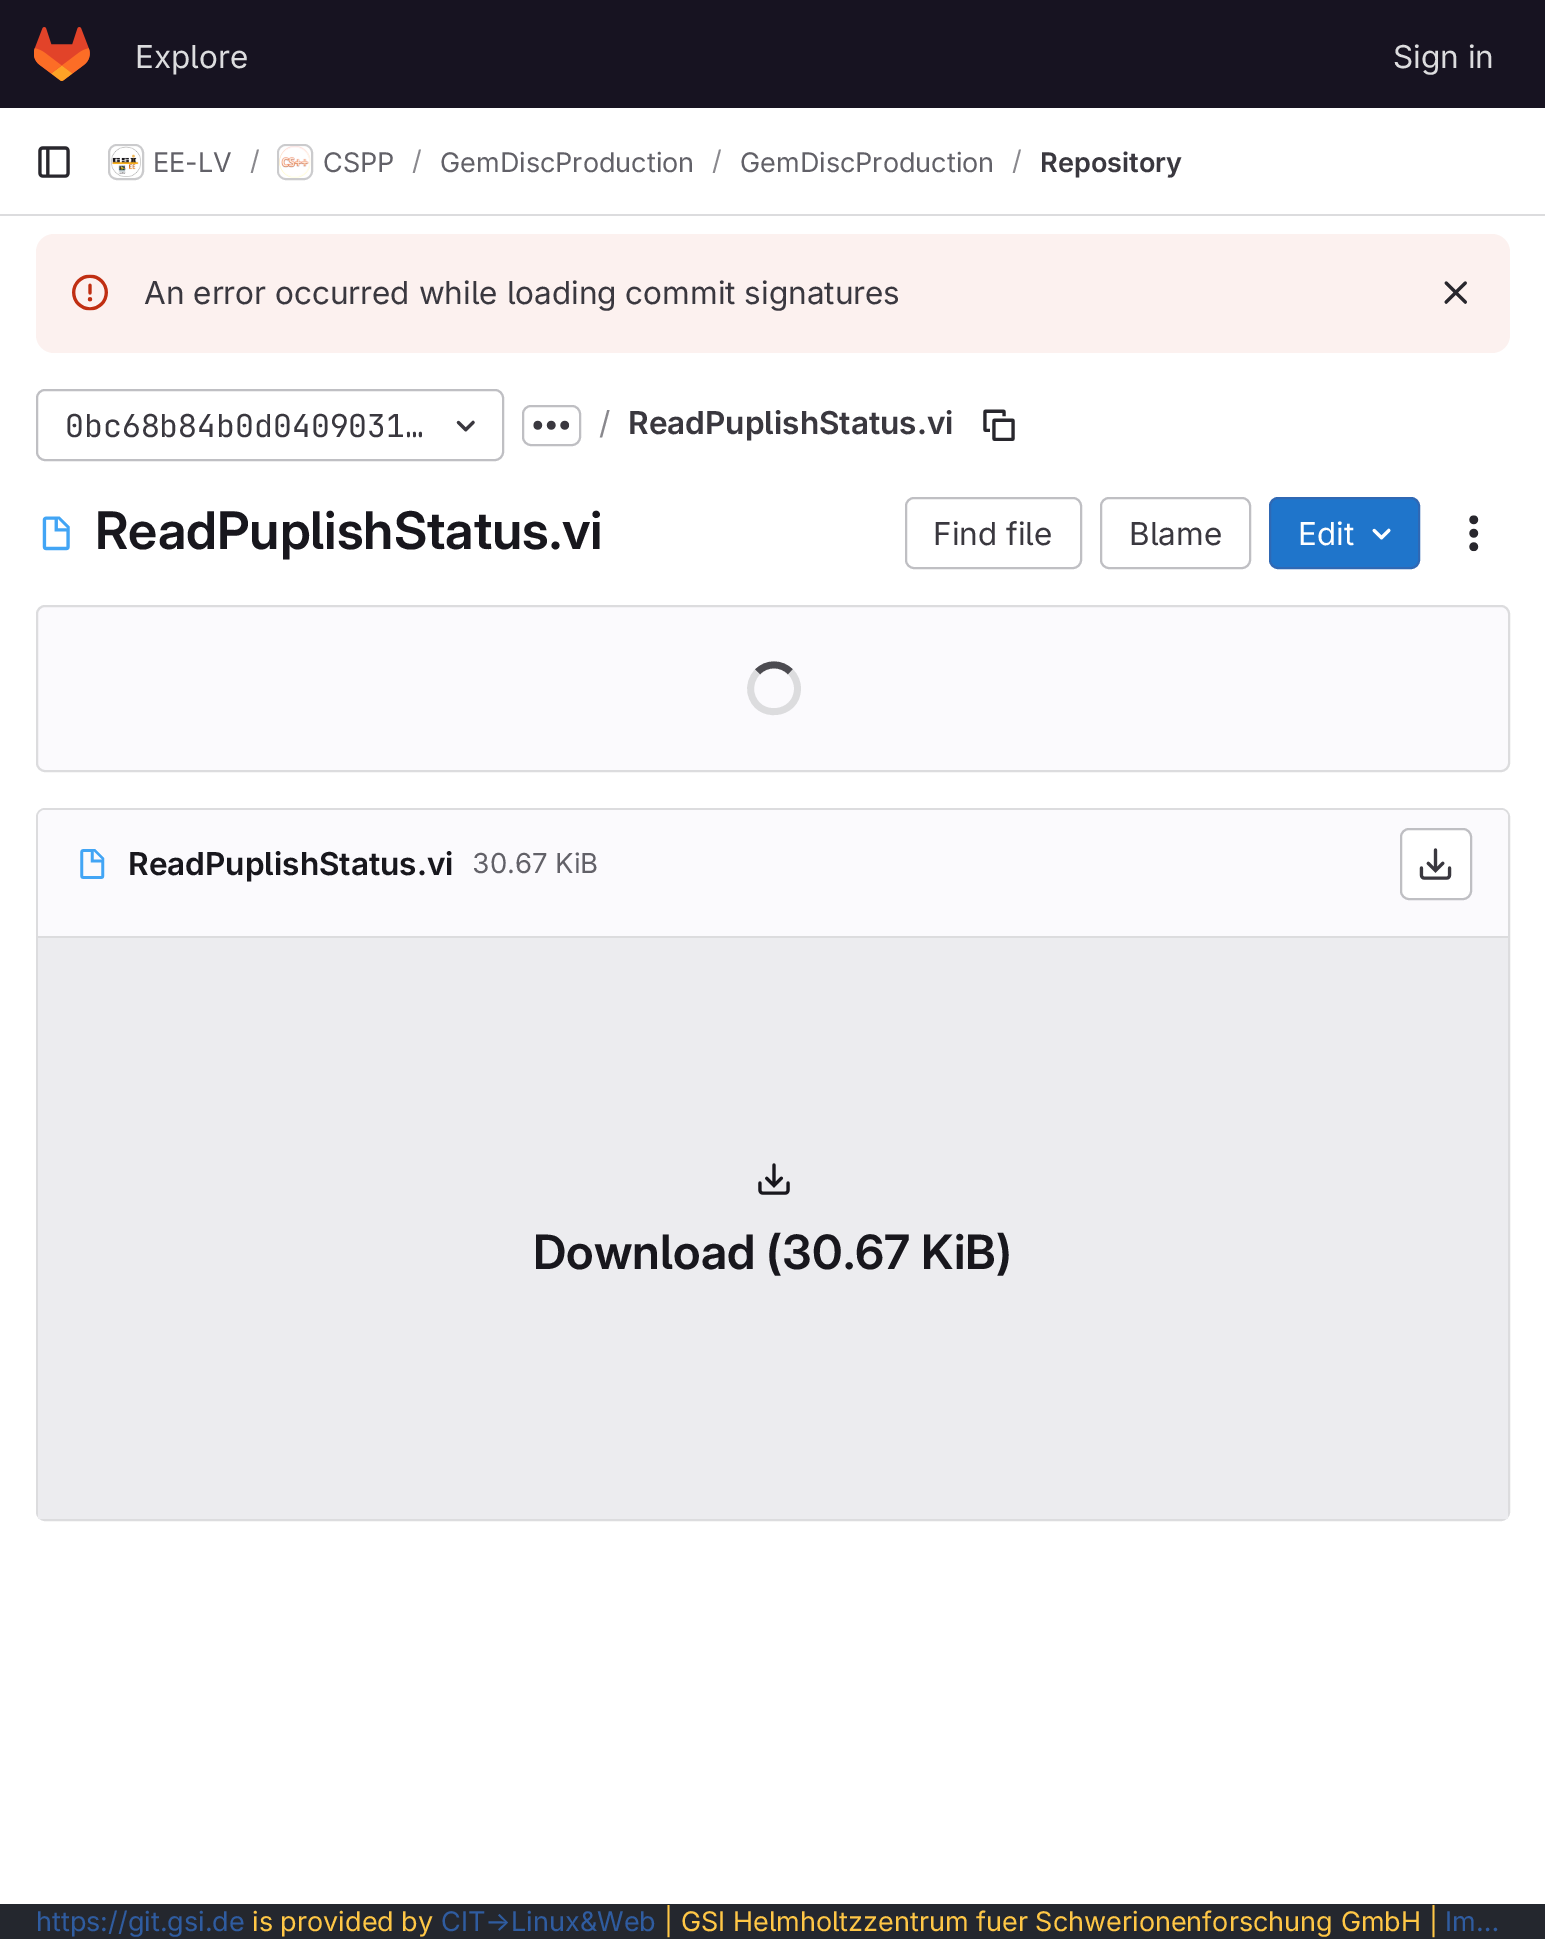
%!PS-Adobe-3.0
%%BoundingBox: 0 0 1545 1939
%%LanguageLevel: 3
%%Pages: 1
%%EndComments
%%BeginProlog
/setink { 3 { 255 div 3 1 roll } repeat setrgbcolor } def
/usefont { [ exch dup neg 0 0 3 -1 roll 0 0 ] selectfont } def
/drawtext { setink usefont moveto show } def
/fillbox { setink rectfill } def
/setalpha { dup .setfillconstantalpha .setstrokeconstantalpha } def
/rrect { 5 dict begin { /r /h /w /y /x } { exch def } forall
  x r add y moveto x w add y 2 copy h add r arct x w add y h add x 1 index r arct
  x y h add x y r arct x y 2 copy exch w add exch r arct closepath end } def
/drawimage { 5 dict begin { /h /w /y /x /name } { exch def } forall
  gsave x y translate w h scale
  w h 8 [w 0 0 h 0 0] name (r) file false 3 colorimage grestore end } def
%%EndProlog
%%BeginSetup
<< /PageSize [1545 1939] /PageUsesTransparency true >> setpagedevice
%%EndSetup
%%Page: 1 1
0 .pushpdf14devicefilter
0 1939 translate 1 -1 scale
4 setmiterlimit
0 0 1545 1939 255 255 255 fillbox
0 0 1545 108 23 19 33 fillbox
(assets/img1.rgb) 34 27 56 54 drawimage
(Explore) 135 68 /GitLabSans-Regular 31.5 220 220 222 drawtext
(Sign in) 1393 68 /GitLabSans-Regular 31.5 220 220 222 drawtext
0 214 1545 2 220 220 222 fillbox
(assets/img2.rgb) 38 146 32 32 drawimage
2 setlinewidth
109 145 34 34 8 rrect stroke
(assets/img3.rgb) 111 146 30 31 drawimage
0.08 setalpha
5 5 6 setink
109 145 34 34 8 rrect stroke
1 setalpha
(EE-LV) 153 172 /GitLabSans-Regular 27 98 97 104 drawtext
(/) 250 170 /GitLabSans-Regular 27 137 136 141 drawtext
220 220 222 setink
278 145 34 34 8 rrect stroke
(assets/img4.rgb) 279 146 32 32 drawimage
0.08 setalpha
5 5 6 setink
278 145 34 34 8 rrect stroke
1 setalpha
(CSPP) 323 172 /GitLabSans-Regular 27 98 97 104 drawtext
(/) 412 170 /GitLabSans-Regular 27 137 136 141 drawtext
(GemDiscProduction) 440 172 /GitLabSans-Regular 27 98 97 104 drawtext
(/) 712 170 /GitLabSans-Regular 27 137 136 141 drawtext
(GemDiscProduction) 740 172 /GitLabSans-Regular 27 98 97 104 drawtext
(/) 1012 170 /GitLabSans-Regular 27 137 136 141 drawtext
(Repository) 1040 172 /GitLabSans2-SemiBold 27 58 56 63 drawtext
252 241 239 setink
36 234 1474 119 18 rrect fill
(assets/img5.rgb) 72 274 36 37 drawimage
(An error occurred while loading commit signatures) 144 304 /GitLabSans-Regular 31.5 58 56 63 drawtext
(assets/img6.rgb) 1444 281 23 23 drawimage
191 191 195 setink
37 390 466 70 8 rrect stroke
(0bc68b84b0d0409031…) 65 437 /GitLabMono-Regular 31.5 58 56 63 drawtext
(assets/img7.rgb) 456 420 19 12 drawimage
191 191 195 setink
523 406 57 39 8 rrect stroke
(assets/img8.rgb) 533 420 37 10 drawimage
(/) 599 434 /GitLabSans-Regular 31.5 137 136 141 drawtext
(ReadPuplishStatus.vi) 628 434 /GitLabSans2-SemiBold 31.5 58 56 63 drawtext
(assets/img9.rgb) 983 409 32 32 drawimage
(assets/img10.rgb) 42 516 28 35 drawimage
(ReadPuplishStatus.vi) 95 549 /GitLabSans-SemiBold 51.75 24 23 29 drawtext
191 191 195 setink
906 498 175 70 8 rrect stroke
(Find file) 933 545 /GitLabSans-Regular 31.5 58 56 63 drawtext
191 191 195 setink
1101 498 149 70 8 rrect stroke
(Blame) 1129 545 /GitLabSans-Regular 31.5 58 56 63 drawtext
31 117 203 setink
1270 498 149 70 8 rrect gsave fill grestore
47 104 180 setink
stroke
(Edit) 1298 545 /GitLabSans-Regular 31.5 255 255 255 drawtext
(assets/img11.rgb) 1372 528 19 12 drawimage
(assets/img12.rgb) 1469 515 10 37 drawimage
251 250 253 setink
37 606 1472 165 8 rrect gsave fill grestore
220 220 222 setink
stroke
76 75 81 setink
6.8 setlinewidth
757.5 672 moveto 766.5 662.5 781.5 662.5 790.5 672 curveto stroke
220 220 222 setink
790.5 672 moveto 795 676 797.5 682.5 797.5 688.5 curveto 797.5 716.5 756.5 720.5 751 693 curveto 749.5 685.5 752 677.5 757.5 672 curveto stroke
2 setlinewidth
37 809 1472 711 8 rrect stroke
251 250 253 setink
45 810 moveto 1501 810 lineto 1505 810 1508 813 1508 817 curveto 1508 938 lineto 38 938 lineto 38 817 lineto 38 813 41 810 45 810 curveto closepath fill
38 936 1470 2 220 220 222 fillbox
(assets/img13.rgb) 80 849 25 30 drawimage
(ReadPuplishStatus.vi) 128 875 /GitLabSans2-SemiBold 31.5 24 23 29 drawtext
(30.67 KiB) 472 873 /GitLabSans-Regular 27.5 98 97 104 drawtext
255 255 255 setink
1401 829 70 70 8 rrect gsave fill grestore
191 191 195 setink
stroke
(assets/img14.rgb) 1419 848 33 32 drawimage
38 938 1470 581 236 236 239 fillbox
(assets/img15.rgb) 758 1163 32 32 drawimage
(Download \(30.67 KiB\)) 533 1269 /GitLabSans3-SemiBold 47.25 24 23 29 drawtext
0 1904 1545 35 36 39 46 fillbox
(https://git.gsi.de) 36 1931 /GitLabSans-Regular 27 47 92 160 drawtext
(is provided by) 252 1931 /GitLabSans-Regular 27 255 199 70 drawtext
(CIT→Linux&Web) 441 1931 /GitLabSans-Regular 27 47 92 160 drawtext
(| GSI Helmholtzzentrum fuer Schwerionenforschung GmbH |) 664 1931 /GitLabSans-Regular 27 255 199 70 drawtext
(Im…) 1445 1931 /GitLabSans-Regular 27 47 92 160 drawtext
.poppdf14devicefilter showpage
%%EOF
